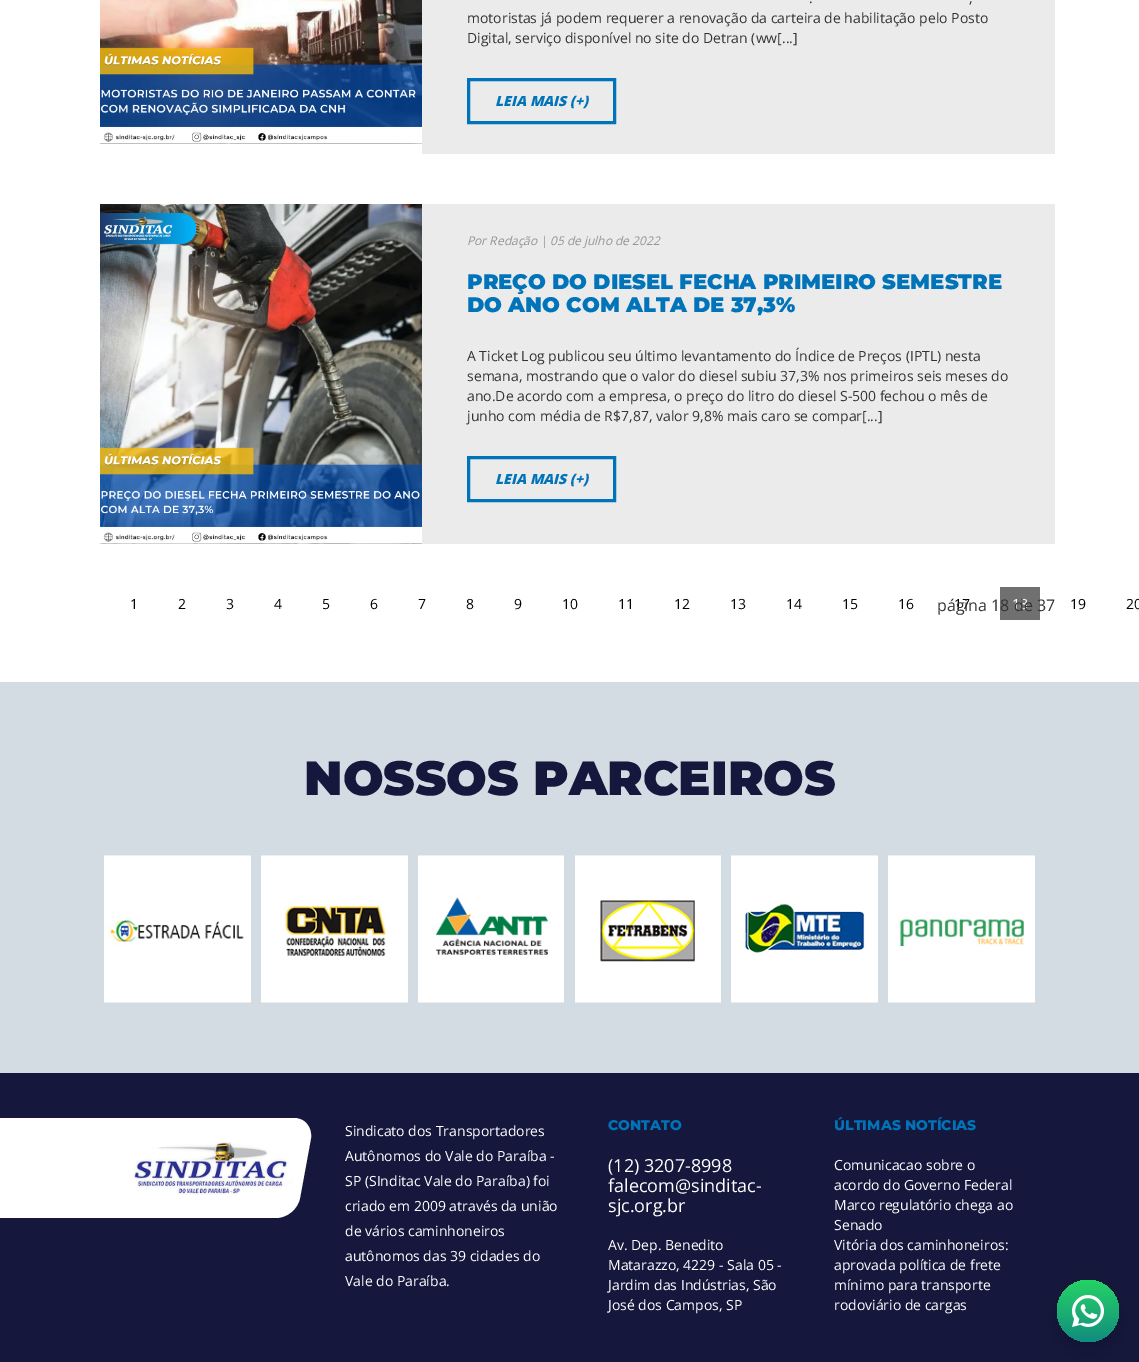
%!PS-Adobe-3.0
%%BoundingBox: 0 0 1139 1362
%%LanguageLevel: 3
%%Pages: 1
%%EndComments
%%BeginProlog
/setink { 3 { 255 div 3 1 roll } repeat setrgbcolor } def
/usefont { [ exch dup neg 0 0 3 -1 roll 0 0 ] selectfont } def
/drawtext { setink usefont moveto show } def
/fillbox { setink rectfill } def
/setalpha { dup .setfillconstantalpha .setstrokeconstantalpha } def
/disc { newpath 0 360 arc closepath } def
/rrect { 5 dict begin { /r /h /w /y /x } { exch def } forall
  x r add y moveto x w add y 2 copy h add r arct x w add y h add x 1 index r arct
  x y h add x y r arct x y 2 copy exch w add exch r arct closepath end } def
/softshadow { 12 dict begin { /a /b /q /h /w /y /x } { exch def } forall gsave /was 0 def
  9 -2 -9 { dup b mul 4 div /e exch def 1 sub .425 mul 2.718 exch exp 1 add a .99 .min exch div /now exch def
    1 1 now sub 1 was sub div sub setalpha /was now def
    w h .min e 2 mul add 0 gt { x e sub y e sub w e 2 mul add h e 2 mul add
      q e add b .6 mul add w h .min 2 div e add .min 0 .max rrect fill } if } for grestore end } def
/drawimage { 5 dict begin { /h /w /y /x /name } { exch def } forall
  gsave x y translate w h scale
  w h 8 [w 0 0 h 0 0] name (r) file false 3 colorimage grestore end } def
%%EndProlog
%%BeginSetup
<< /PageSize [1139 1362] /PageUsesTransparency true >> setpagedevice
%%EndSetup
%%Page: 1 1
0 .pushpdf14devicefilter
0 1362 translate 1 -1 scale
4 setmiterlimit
0 0 1139 1362 255 255 255 fillbox
(assets/img1.rgb) 100 0 322 144 drawimage
422 0 633 154 235 235 235 fillbox
(.) 809 3 /OpenSans-Regular 14 51 51 51 drawtext
(,) 969 3 /OpenSans-Regular 14 51 51 51 drawtext
(motoristas já podem requerer a renovação da carteira de habilitação pelo Posto) 467 23 /OpenSans-Regular 14 51 51 51 drawtext
(Digital, serviço disponível no site do Detran \(ww[...]) 467 43 /OpenSans-Regular 14 51 51 51 drawtext
0 115 185 setink
3 setlinewidth
468.5 79.5 146 43 rectstroke
(LEIA MAIS \(+\)) 495 106 /OpenSans-ExtraBoldItalic 14 0 115 185 drawtext
(assets/img2.rgb) 100 204 322 340 drawimage
422 204 633 340 235 235 235 fillbox
(Por Redação) 467 245 /OpenSans-Italic 12 149 149 149 drawtext
(|) 541 245 /OpenSans-Regular 12 149 149 149 drawtext
(05 de julho de 2022) 550 245 /OpenSans-Italic 12 149 149 149 drawtext
(PREÇO DO DIESEL FECHA PRIMEIRO SEMESTRE) 467 289 /Montserrat-Black 21 0 115 185 drawtext
(DO ANO COM ALTA DE 37,3%) 467 312 /Montserrat-Black 21 0 115 185 drawtext
(A Ticket Log publicou seu último levantamento do Índice de Preços \(IPTL\) nesta) 467 361 /OpenSans-Regular 14 51 51 51 drawtext
(semana, mostrando que o valor do diesel subiu 37,3% nos primeiros seis meses do) 467 381 /OpenSans-Regular 14 51 51 51 drawtext
(ano.De acordo com a empresa, o preço do litro do diesel S-500 fechou o mês de) 467 401 /OpenSans-Regular 14 51 51 51 drawtext
(junho com média de R$7,87, valor 9,8% mais caro se compar[...]) 467 421 /OpenSans-Regular 14 51 51 51 drawtext
0 115 185 setink
468.5 457.5 146 43 rectstroke
(LEIA MAIS \(+\)) 495 484 /OpenSans-ExtraBoldItalic 14 0 115 185 drawtext
(1) 130 609 /OpenSans-Regular 14 0 0 0 drawtext
(2) 178 609 /OpenSans-Regular 14 0 0 0 drawtext
(3) 226 609 /OpenSans-Regular 14 0 0 0 drawtext
(4) 274 609 /OpenSans-Regular 14 0 0 0 drawtext
(5) 322 609 /OpenSans-Regular 14 0 0 0 drawtext
(6) 370 609 /OpenSans-Regular 14 0 0 0 drawtext
(7) 418 609 /OpenSans-Regular 14 0 0 0 drawtext
(8) 466 609 /OpenSans-Regular 14 0 0 0 drawtext
(9) 514 609 /OpenSans-Regular 14 0 0 0 drawtext
(10) 562 609 /OpenSans-Regular 14 0 0 0 drawtext
(11) 618 609 /OpenSans-Regular 14 0 0 0 drawtext
(12) 674 609 /OpenSans-Regular 14 0 0 0 drawtext
(13) 730 609 /OpenSans-Regular 14 0 0 0 drawtext
(14) 786 609 /OpenSans-Regular 14 0 0 0 drawtext
(15) 842 609 /OpenSans-Regular 14 0 0 0 drawtext
(16) 898 609 /OpenSans-Regular 14 0 0 0 drawtext
(17) 954 609 /OpenSans-Regular 14 0 0 0 drawtext
1000 587 40 33 112 112 112 fillbox
(18) 1012 609 /OpenSans-Regular 14 255 255 255 drawtext
(19) 1070 609 /OpenSans-Regular 14 0 0 0 drawtext
(20) 1126 609 /OpenSans-Regular 14 0 0 0 drawtext
(página 18 de 37) 937 611 /OpenSans-Regular 16 51 51 51 drawtext
0 682 1139 391 210 220 226 fillbox
(NOSSOS PARCEIROS) 304 795 /Montserrat-Black 48 21 24 60 drawtext
(assets/img3.rgb) 104 855 147 148 drawimage
(assets/img4.rgb) 261 855 147 148 drawimage
(assets/img5.rgb) 418 855 146 148 drawimage
(assets/img6.rgb) 575 855 146 148 drawimage
(assets/img7.rgb) 731 855 147 148 drawimage
(assets/img8.rgb) 888 855 147 148 drawimage
0 1073 1139 289 21 24 60 fillbox
0 1118 128 100 255 255 255 fillbox
128 1118 moveto 294 1118 lineto 305 1118 312 1127 311 1138 curveto 300 1198 lineto 298 1209 287 1218 276 1218 curveto 111 1218 lineto closepath fill
(assets/img9.rgb) 132 1142 161 53 drawimage
(Sindicato dos Transportadores) 345 1136 /OpenSans-Regular 14 255 255 255 drawtext
(Autônomos do Vale do Paraíba -) 345 1161 /OpenSans-Regular 14 255 255 255 drawtext
(SP \(SInditac Vale do Paraíba\) foi) 345 1186 /OpenSans-Regular 14 255 255 255 drawtext
(criado em 2009 através da união) 345 1211 /OpenSans-Regular 14 255 255 255 drawtext
(de vários caminhoneiros) 345 1236 /OpenSans-Regular 14 255 255 255 drawtext
(autônomos das 39 cidades do) 345 1261 /OpenSans-Regular 14 255 255 255 drawtext
(Vale do Paraíba.) 345 1286 /OpenSans-Regular 14 255 255 255 drawtext
(CONTATO) 608 1130 /Montserrat-ExtraBold 14 0 115 185 drawtext
(\(12\) 3207-8998) 608 1172 /OpenSans-Regular 18 255 255 255 drawtext
(falecom@sinditac-) 608 1192 /OpenSans-Regular 18 255 255 255 drawtext
(sjc.org.br) 608 1212 /OpenSans-Regular 18 255 255 255 drawtext
(Av. Dep. Benedito) 608 1250 /OpenSans-Regular 14 255 255 255 drawtext
(Matarazzo, 4229 - Sala 05 -) 608 1270 /OpenSans-Regular 14 255 255 255 drawtext
(Jardim das Indústrias, São) 608 1290 /OpenSans-Regular 14 255 255 255 drawtext
(José dos Campos, SP) 608 1310 /OpenSans-Regular 14 255 255 255 drawtext
(ÚLTIMAS NOTÍCIAS) 834 1130 /Montserrat-ExtraBold 14 0 115 185 drawtext
(Comunicacao sobre o) 834 1170 /OpenSans-Regular 14 255 255 255 drawtext
(acordo do Governo Federal) 834 1190 /OpenSans-Regular 14 255 255 255 drawtext
(Marco regulatório chega ao) 834 1210 /OpenSans-Regular 14 255 255 255 drawtext
(Senado) 834 1230 /OpenSans-Regular 14 255 255 255 drawtext
(Vitória dos caminhoneiros:) 834 1250 /OpenSans-Regular 14 255 255 255 drawtext
(aprovada política de frete) 834 1270 /OpenSans-Regular 14 255 255 255 drawtext
(mínimo para transporte) 834 1290 /OpenSans-Regular 14 255 255 255 drawtext
(rodoviário de cargas) 834 1310 /OpenSans-Regular 14 255 255 255 drawtext
0 0 0 setink
1057 1290 62 62 31 12.5 0.18 softshadow
gsave 1088 1311 31 disc clip newpath
<< /ShadingType 2 /ColorSpace /DeviceRGB /Coords [1088 1280 1088 1342] /Extend [true true] /Function << /FunctionType 2 /Domain [0 1] /C0 [0.145 0.827 0.4] /C1 [0.071 0.549 0.494] /N 1 >> >> shfill grestore
(assets/img10.rgb) 1072 1295 32 32 drawimage
.poppdf14devicefilter showpage
%%EOF
